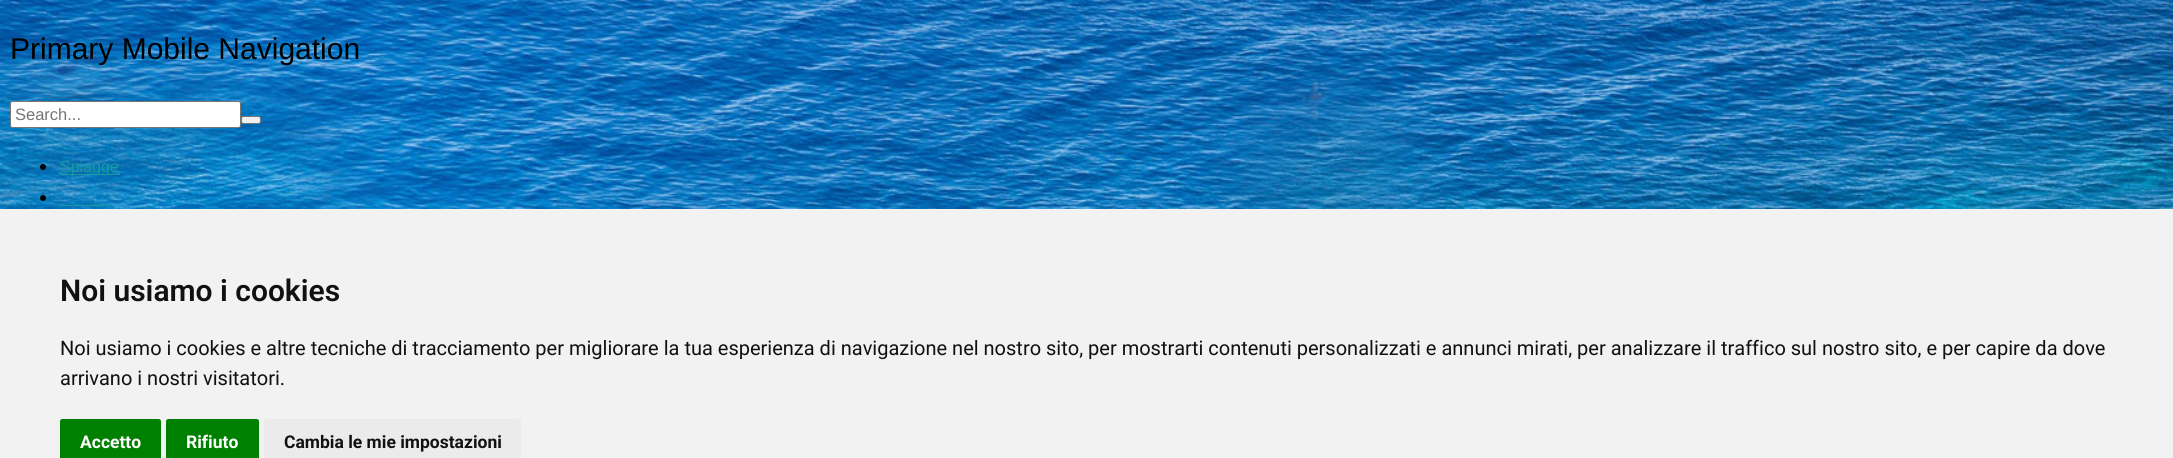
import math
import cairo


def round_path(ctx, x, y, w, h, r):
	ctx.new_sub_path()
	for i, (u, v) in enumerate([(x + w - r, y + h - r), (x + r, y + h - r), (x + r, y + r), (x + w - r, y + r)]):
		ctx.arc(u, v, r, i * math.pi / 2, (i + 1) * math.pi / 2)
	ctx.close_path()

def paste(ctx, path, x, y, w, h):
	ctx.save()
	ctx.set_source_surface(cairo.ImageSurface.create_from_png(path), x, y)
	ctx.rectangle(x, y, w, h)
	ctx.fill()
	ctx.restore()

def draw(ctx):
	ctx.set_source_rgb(1, 1, 1)
	ctx.paint()
	paste(ctx, 'media/1.png', 0, 0, 2173, 209)
	ctx.select_font_face('Liberation Sans')
	ctx.set_font_size(30)
	ctx.set_source_rgb(0, 0, 0)
	ctx.move_to(10, 59)
	ctx.show_text('Primary Mobile Navigation')
	ctx.set_source_rgb(1, 1, 1)
	round_path(ctx, 10.5, 101.5, 230, 26, 2)
	ctx.fill_preserve()
	ctx.set_source_rgb(0.463, 0.463, 0.463)
	ctx.set_line_width(1)
	ctx.stroke()
	ctx.set_font_size(16.5)
	ctx.set_source_rgb(0.459, 0.459, 0.459)
	ctx.move_to(15, 120)
	ctx.show_text('Search...')
	ctx.set_source_rgb(0.937, 0.937, 0.937)
	round_path(ctx, 241.5, 116.5, 19, 7, 2)
	ctx.fill_preserve()
	ctx.set_source_rgb(0.463, 0.463, 0.463)
	ctx.stroke()
	ctx.set_source_rgb(0, 0, 0)
	ctx.arc(43, 167, 3, 0, 2 * math.pi)
	ctx.fill()
	ctx.set_source_rgb(0.09, 0.608, 0.62)
	ctx.rectangle(60, 174, 60, 1)
	ctx.fill()
	ctx.set_font_size(16)
	ctx.move_to(60, 172)
	ctx.show_text('Spiagge')
	ctx.set_source_rgb(0, 0, 0)
	ctx.new_path()
	ctx.arc(43, 198, 3, 0, 2 * math.pi)
	ctx.fill()
	ctx.set_source_rgb(0.09, 0.608, 0.62)
	ctx.rectangle(60, 205, 49, 1)
	ctx.fill()
	ctx.set_source_rgb(0.949, 0.949, 0.949)
	ctx.rectangle(0, 209, 2173, 249)
	ctx.fill()
	ctx.select_font_face('Roboto SemiBold')
	ctx.set_font_size(30)
	ctx.set_source_rgb(0.067, 0.067, 0.067)
	ctx.move_to(60, 301)
	ctx.show_text('Noi usiamo i cookies')
	ctx.select_font_face('Roboto')
	ctx.set_font_size(20)
	ctx.move_to(60, 355)
	ctx.show_text('Noi usiamo i cookies e altre tecniche di tracciamento per migliorare la tua esperienza di navigazione nel nostro sito, per mostrarti contenuti personalizzati e annunci mirati, per analizzare il traffico sul nostro sito, e per capire da dove')
	ctx.move_to(60, 385)
	ctx.show_text('arrivano i nostri visitatori.')
	ctx.set_source_rgb(0, 0.502, 0)
	ctx.new_path()
	ctx.move_to(62.5, 419)
	ctx.line_to(158.5, 419)
	ctx.curve_to(160, 419, 161, 420, 161, 421.5)
	ctx.line_to(161, 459)
	ctx.line_to(60, 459)
	ctx.line_to(60, 421.5)
	ctx.curve_to(60, 420, 61, 419, 62.5, 419)
	ctx.close_path()
	ctx.fill()
	ctx.select_font_face('Roboto', cairo.FONT_SLANT_NORMAL, cairo.FONT_WEIGHT_BOLD)
	ctx.set_font_size(17.5)
	ctx.set_source_rgb(1, 1, 1)
	ctx.move_to(80, 448)
	ctx.show_text('Accetto')
	ctx.set_source_rgb(0, 0.502, 0)
	ctx.new_path()
	ctx.move_to(168.5, 419)
	ctx.line_to(256.5, 419)
	ctx.curve_to(258, 419, 259, 420, 259, 421.5)
	ctx.line_to(259, 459)
	ctx.line_to(166, 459)
	ctx.line_to(166, 421.5)
	ctx.curve_to(166, 420, 167, 419, 168.5, 419)
	ctx.close_path()
	ctx.fill()
	ctx.set_source_rgb(1, 1, 1)
	ctx.move_to(186, 448)
	ctx.show_text('Rifiuto')
	ctx.set_source_rgb(0.918, 0.918, 0.918)
	ctx.new_path()
	ctx.move_to(266.5, 419)
	ctx.line_to(518.5, 419)
	ctx.curve_to(520, 419, 521, 420, 521, 421.5)
	ctx.line_to(521, 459)
	ctx.line_to(264, 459)
	ctx.line_to(264, 421.5)
	ctx.curve_to(264, 420, 265, 419, 266.5, 419)
	ctx.close_path()
	ctx.fill()
	ctx.set_source_rgb(0.067, 0.067, 0.067)
	ctx.move_to(284, 448)
	ctx.show_text('Cambia le mie impostazioni')


surface = cairo.ImageSurface(cairo.FORMAT_RGB24, 2173, 458)
ctx = cairo.Context(surface)
options = cairo.FontOptions()
options.set_hint_metrics(cairo.HINT_METRICS_OFF)
options.set_hint_style(cairo.HINT_STYLE_NONE)
ctx.set_font_options(options)
ctx.set_miter_limit(4)
draw(ctx)
surface.write_to_png('image.png')
